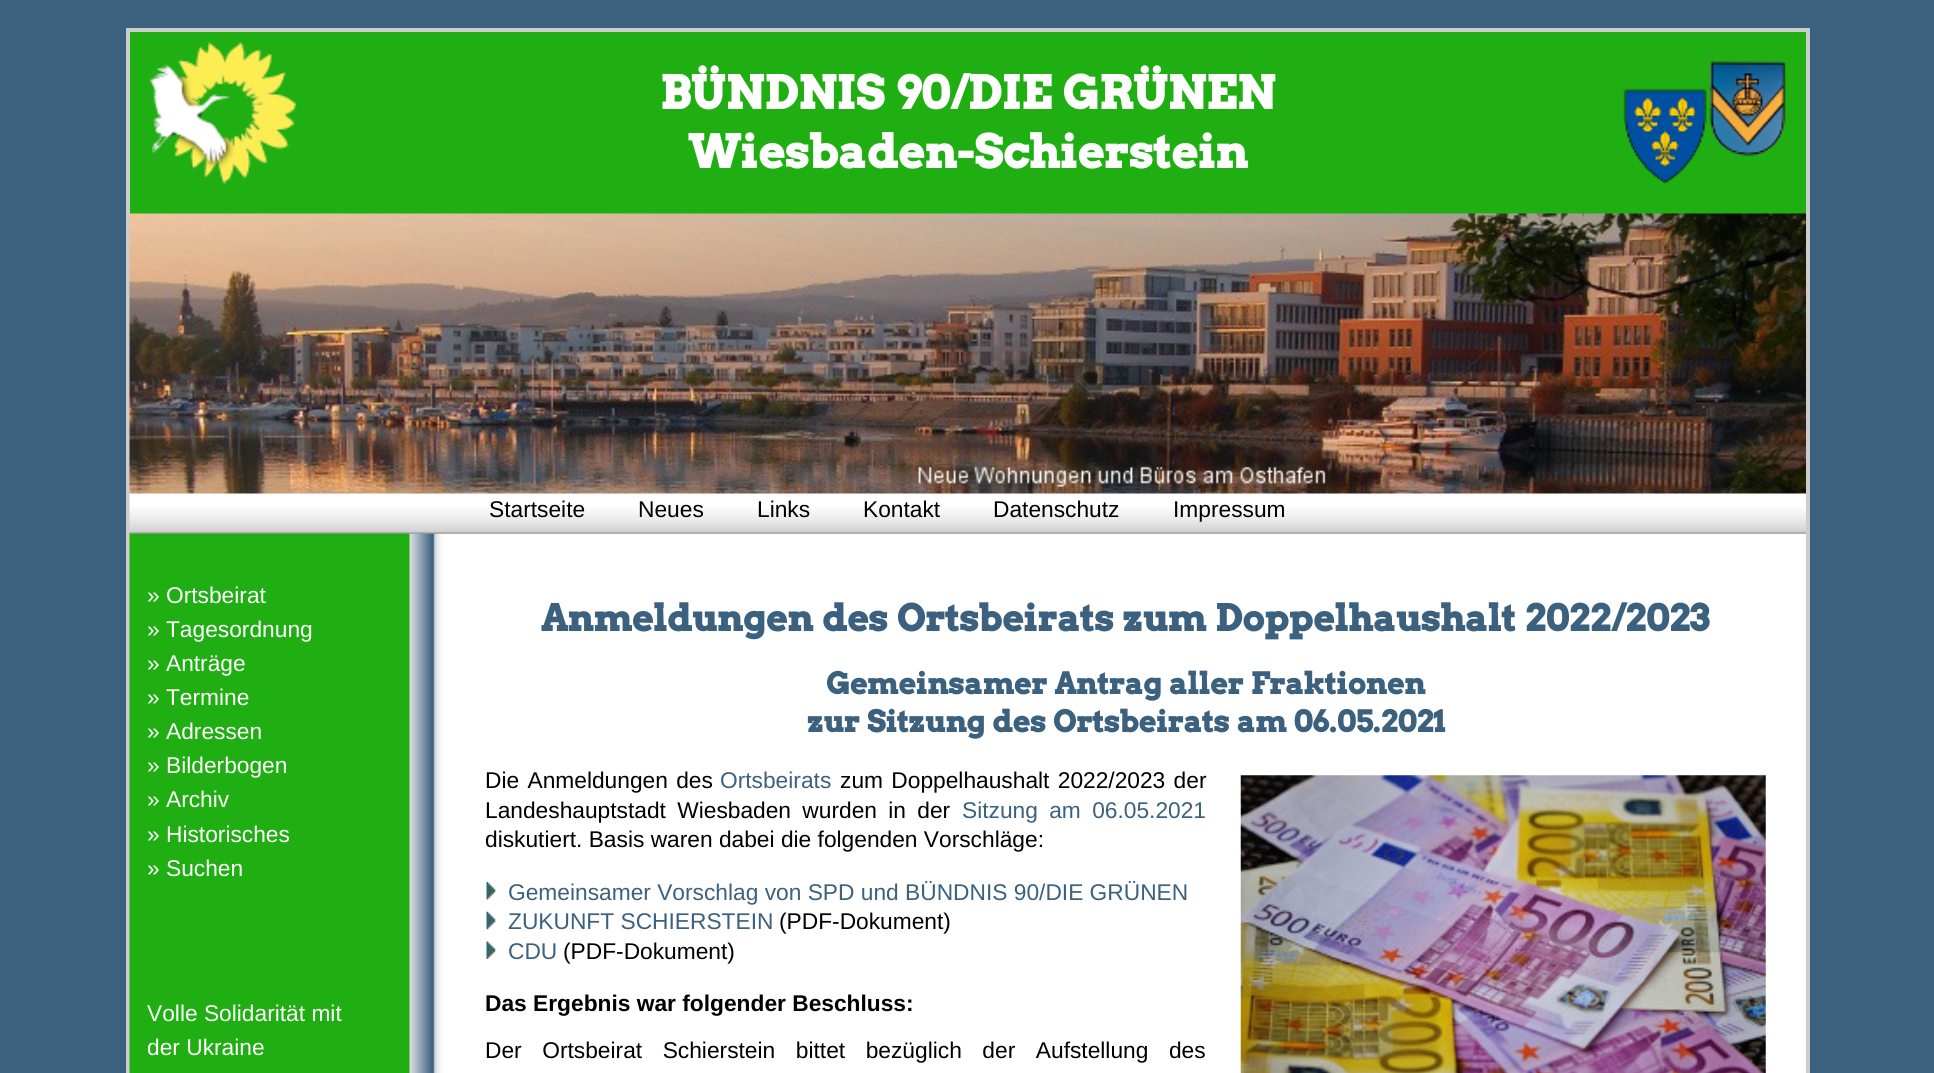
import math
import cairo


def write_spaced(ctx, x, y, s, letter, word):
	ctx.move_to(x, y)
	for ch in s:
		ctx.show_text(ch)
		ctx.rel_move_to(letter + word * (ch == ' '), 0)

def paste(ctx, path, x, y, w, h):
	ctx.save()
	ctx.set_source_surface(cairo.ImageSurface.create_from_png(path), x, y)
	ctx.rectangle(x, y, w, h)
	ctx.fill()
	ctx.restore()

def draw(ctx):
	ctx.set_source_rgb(0.231, 0.38, 0.498)
	ctx.paint()
	ctx.rectangle(128, 30, 1680, 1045)
	ctx.set_source_rgb(0.8, 0.8, 0.8)
	ctx.set_line_width(4)
	ctx.stroke()
	ctx.set_source_rgb(0.122, 0.686, 0.071)
	ctx.rectangle(130, 32, 1676, 182)
	ctx.fill()
	paste(ctx, 'media/1.png', 149, 42, 148, 142)
	ctx.select_font_face('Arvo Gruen', cairo.FONT_SLANT_NORMAL, cairo.FONT_WEIGHT_BOLD)
	ctx.set_font_size(45.5)
	ctx.set_source_rgb(1, 1, 1)
	ctx.move_to(660, 109)
	ctx.show_text('BÜNDNIS 90/DIE GRÜNEN')
	ctx.move_to(688, 168)
	ctx.show_text('Wiesbaden-Schierstein')
	paste(ctx, 'media/2.png', 1623, 61, 163, 123)
	paste(ctx, 'media/4.png', 129, 484, 1677, 50)
	paste(ctx, 'media/3.png', 129, 213, 1677, 281)
	ctx.select_font_face('Liberation Sans')
	ctx.set_font_size(22.75)
	ctx.set_source_rgb(0, 0, 0)
	for x, y, s in [
		(489, 517, 'Startseite'),
		(638, 517, 'Neues'),
		(757, 517, 'Links'),
		(863, 517, 'Kontakt'),
		(993, 517, 'Datenschutz'),
		(1173, 517, 'Impressum'),
	]:
		ctx.move_to(x, y)
		ctx.show_text(s)
	paste(ctx, 'media/5.png', 129, 533, 1677, 540)
	ctx.set_source_rgb(1, 1, 1)
	for x, y, s in [
		(147, 603, '» Ortsbeirat'),
		(147, 637, '» Tagesordnung'),
		(147, 671, '» Anträge'),
		(147, 705, '» Termine'),
		(147, 739, '» Adressen'),
		(147, 773, '» Bilderbogen'),
		(147, 807, '» Archiv'),
		(147, 842, '» Historisches'),
		(147, 876, '» Suchen'),
		(147, 1021, 'Volle Solidarität mit'),
		(147, 1055, 'der Ukraine'),
	]:
		ctx.move_to(x, y)
		ctx.show_text(s)
	ctx.select_font_face('Arvo Gruen', cairo.FONT_SLANT_NORMAL, cairo.FONT_WEIGHT_BOLD)
	ctx.set_font_size(36.4)
	ctx.set_source_rgb(0.231, 0.38, 0.498)
	ctx.move_to(541, 631)
	ctx.show_text('Anmeldungen des Ortsbeirats zum Doppelhaushalt 2022/2023')
	ctx.set_font_size(29.6)
	ctx.move_to(826, 694)
	ctx.show_text('Gemeinsamer Antrag aller Fraktionen')
	ctx.move_to(807, 732)
	ctx.show_text('zur Sitzung des Ortsbeirats am 06.05.2021')
	ctx.select_font_face('Liberation Sans')
	ctx.set_font_size(22.75)
	ctx.set_source_rgb(0, 0, 0)
	write_spaced(ctx, 485, 788, 'Die Anmeldungen des', 0, 2)
	ctx.set_source_rgb(0.231, 0.38, 0.498)
	ctx.move_to(720, 788)
	ctx.show_text('Ortsbeirats')
	ctx.set_source_rgb(0, 0, 0)
	write_spaced(ctx, 840, 788, 'zum Doppelhaushalt 2022/2023 der', 0, 2)
	write_spaced(ctx, 485, 818, 'Landeshauptstadt Wiesbaden wurden in der', 0, 5)
	ctx.set_source_rgb(0.231, 0.38, 0.498)
	write_spaced(ctx, 962, 818, 'Sitzung am 06.05.2021', 0, 5)
	ctx.set_source_rgb(0, 0, 0)
	ctx.move_to(485, 847)
	ctx.show_text('diskutiert. Basis waren dabei die folgenden Vorschläge:')
	paste(ctx, 'media/6.png', 1240, 775, 526, 298)
	paste(ctx, 'media/7.png', 486, 882, 10, 18)
	ctx.set_source_rgb(0.231, 0.38, 0.498)
	ctx.move_to(508, 900)
	ctx.show_text('Gemeinsamer Vorschlag von SPD und BÜNDNIS 90/DIE GRÜNEN')
	paste(ctx, 'media/8.png', 486, 911, 10, 19)
	ctx.move_to(508, 929)
	ctx.show_text('ZUKUNFT SCHIERSTEIN')
	ctx.set_source_rgb(0, 0, 0)
	ctx.move_to(779, 929)
	ctx.show_text('(PDF-Dokument)')
	paste(ctx, 'media/9.png', 486, 941, 10, 18)
	ctx.set_source_rgb(0.231, 0.38, 0.498)
	ctx.move_to(508, 959)
	ctx.show_text('CDU')
	ctx.set_source_rgb(0, 0, 0)
	ctx.move_to(563, 959)
	ctx.show_text('(PDF-Dokument)')
	ctx.select_font_face('Liberation Sans', cairo.FONT_SLANT_NORMAL, cairo.FONT_WEIGHT_BOLD)
	ctx.move_to(485, 1011)
	ctx.show_text('Das Ergebnis war folgender Beschluss:')
	ctx.select_font_face('Liberation Sans')
	write_spaced(ctx, 485, 1058, 'Der Ortsbeirat Schierstein bittet bezüglich der Aufstellung des', 0, 14.25)


surface = cairo.ImageSurface(cairo.FORMAT_RGB24, 1934, 1073)
ctx = cairo.Context(surface)
options = cairo.FontOptions()
options.set_hint_metrics(cairo.HINT_METRICS_OFF)
options.set_hint_style(cairo.HINT_STYLE_NONE)
ctx.set_font_options(options)
ctx.set_miter_limit(4)
draw(ctx)
surface.write_to_png('image.png')
